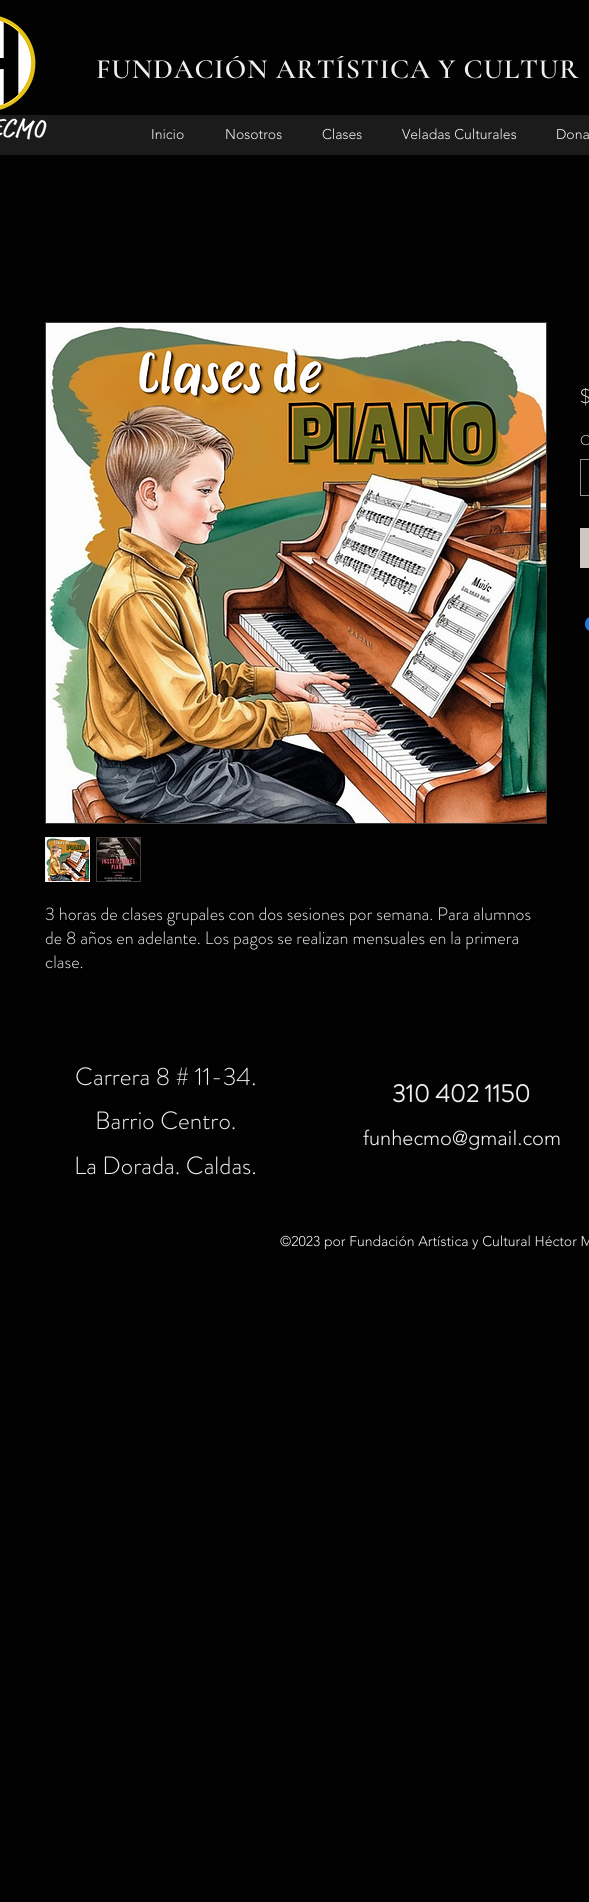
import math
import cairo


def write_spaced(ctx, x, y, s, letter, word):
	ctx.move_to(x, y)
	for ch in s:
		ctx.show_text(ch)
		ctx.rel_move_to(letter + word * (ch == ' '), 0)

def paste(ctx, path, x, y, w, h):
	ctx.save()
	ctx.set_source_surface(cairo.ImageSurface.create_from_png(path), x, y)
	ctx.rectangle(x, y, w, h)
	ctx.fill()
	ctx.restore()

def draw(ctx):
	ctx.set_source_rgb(0.008, 0.008, 0.008)
	ctx.paint()
	ctx.set_source_rgb(0.106, 0.106, 0.106)
	ctx.rectangle(0, 115, 589, 40)
	ctx.fill()
	paste(ctx, 'media/1.png', 0, 16, 47, 124)
	ctx.select_font_face('Cormorant Garamond SemiBold')
	ctx.set_font_size(28)
	ctx.set_source_rgb(0.937, 0.937, 0.937)
	write_spaced(ctx, 96, 78, 'FUNDACIÓN ARTÍSTICA Y CULTUR', 0.85, 0)
	ctx.select_font_face('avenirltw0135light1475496 Light')
	ctx.set_font_size(14)
	for x, y, s in [
		(151, 139, 'Inicio'),
		(225, 139, 'Nosotros'),
		(322, 139, 'Clases'),
		(402, 139, 'Veladas Culturales'),
		(556, 139, 'Dona'),
	]:
		ctx.move_to(x, y)
		ctx.show_text(s)
	ctx.select_font_face('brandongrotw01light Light')
	ctx.set_font_size(20)
	ctx.move_to(580, 403)
	ctx.show_text('$')
	ctx.set_font_size(14)
	ctx.move_to(580, 445)
	ctx.show_text('C')
	ctx.rectangle(580.5, 459.5, 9, 36)
	ctx.set_source_rgb(0.565, 0.565, 0.565)
	ctx.set_line_width(1)
	ctx.stroke()
	ctx.set_source_rgb(0.812, 0.773, 0.765)
	ctx.rectangle(580, 528, 9, 40)
	ctx.fill()
	paste(ctx, 'media/2.png', 585, 617, 4, 14)
	ctx.rectangle(45.5, 322.5, 501, 501)
	ctx.set_source_rgb(0.239, 0.239, 0.239)
	ctx.stroke()
	paste(ctx, 'media/3.png', 46, 323, 500, 500)
	ctx.rectangle(45.5, 837.5, 44, 44)
	ctx.set_source_rgb(0.937, 0.937, 0.937)
	ctx.stroke()
	paste(ctx, 'media/4.png', 46, 838, 43, 43)
	ctx.set_source_rgb(0.239, 0.239, 0.239)
	ctx.rectangle(96, 837, 45, 45)
	ctx.fill()
	paste(ctx, 'media/5.png', 97, 838, 43, 43)
	ctx.set_font_size(18)
	ctx.set_source_rgb(0.937, 0.937, 0.937)
	for x, y, s in [
		(45, 920, '3 horas de clases grupales con dos sesiones por semana. Para alumnos'),
		(45, 944, 'de 8 años en adelante. Los pagos se realizan mensuales en la primera'),
		(45, 968, 'clase.'),
	]:
		ctx.move_to(x, y)
		ctx.show_text(s)
	ctx.set_font_size(25)
	for x, y, s in [
		(75, 1085, 'Carrera 8 # 11-34.'),
		(95, 1129, 'Barrio Centro.'),
		(74, 1174, 'La Dorada. Caldas.'),
	]:
		ctx.move_to(x, y)
		ctx.show_text(s)
	ctx.select_font_face('brandongrotw01light', cairo.FONT_SLANT_NORMAL, cairo.FONT_WEIGHT_BOLD)
	ctx.move_to(392, 1102)
	ctx.show_text('310 402 1150')
	ctx.select_font_face('avenirltw0135light1475496 Light')
	ctx.set_font_size(20)
	ctx.move_to(363, 1145)
	ctx.show_text('funhecmo@gmail.com')
	ctx.set_font_size(14)
	ctx.move_to(280, 1246)
	ctx.show_text('©2023 por Fundación Artística y Cultural Héctor M')


surface = cairo.ImageSurface(cairo.FORMAT_RGB24, 589, 1902)
ctx = cairo.Context(surface)
options = cairo.FontOptions()
options.set_hint_metrics(cairo.HINT_METRICS_OFF)
options.set_hint_style(cairo.HINT_STYLE_NONE)
ctx.set_font_options(options)
ctx.set_miter_limit(4)
draw(ctx)
surface.write_to_png('image.png')
